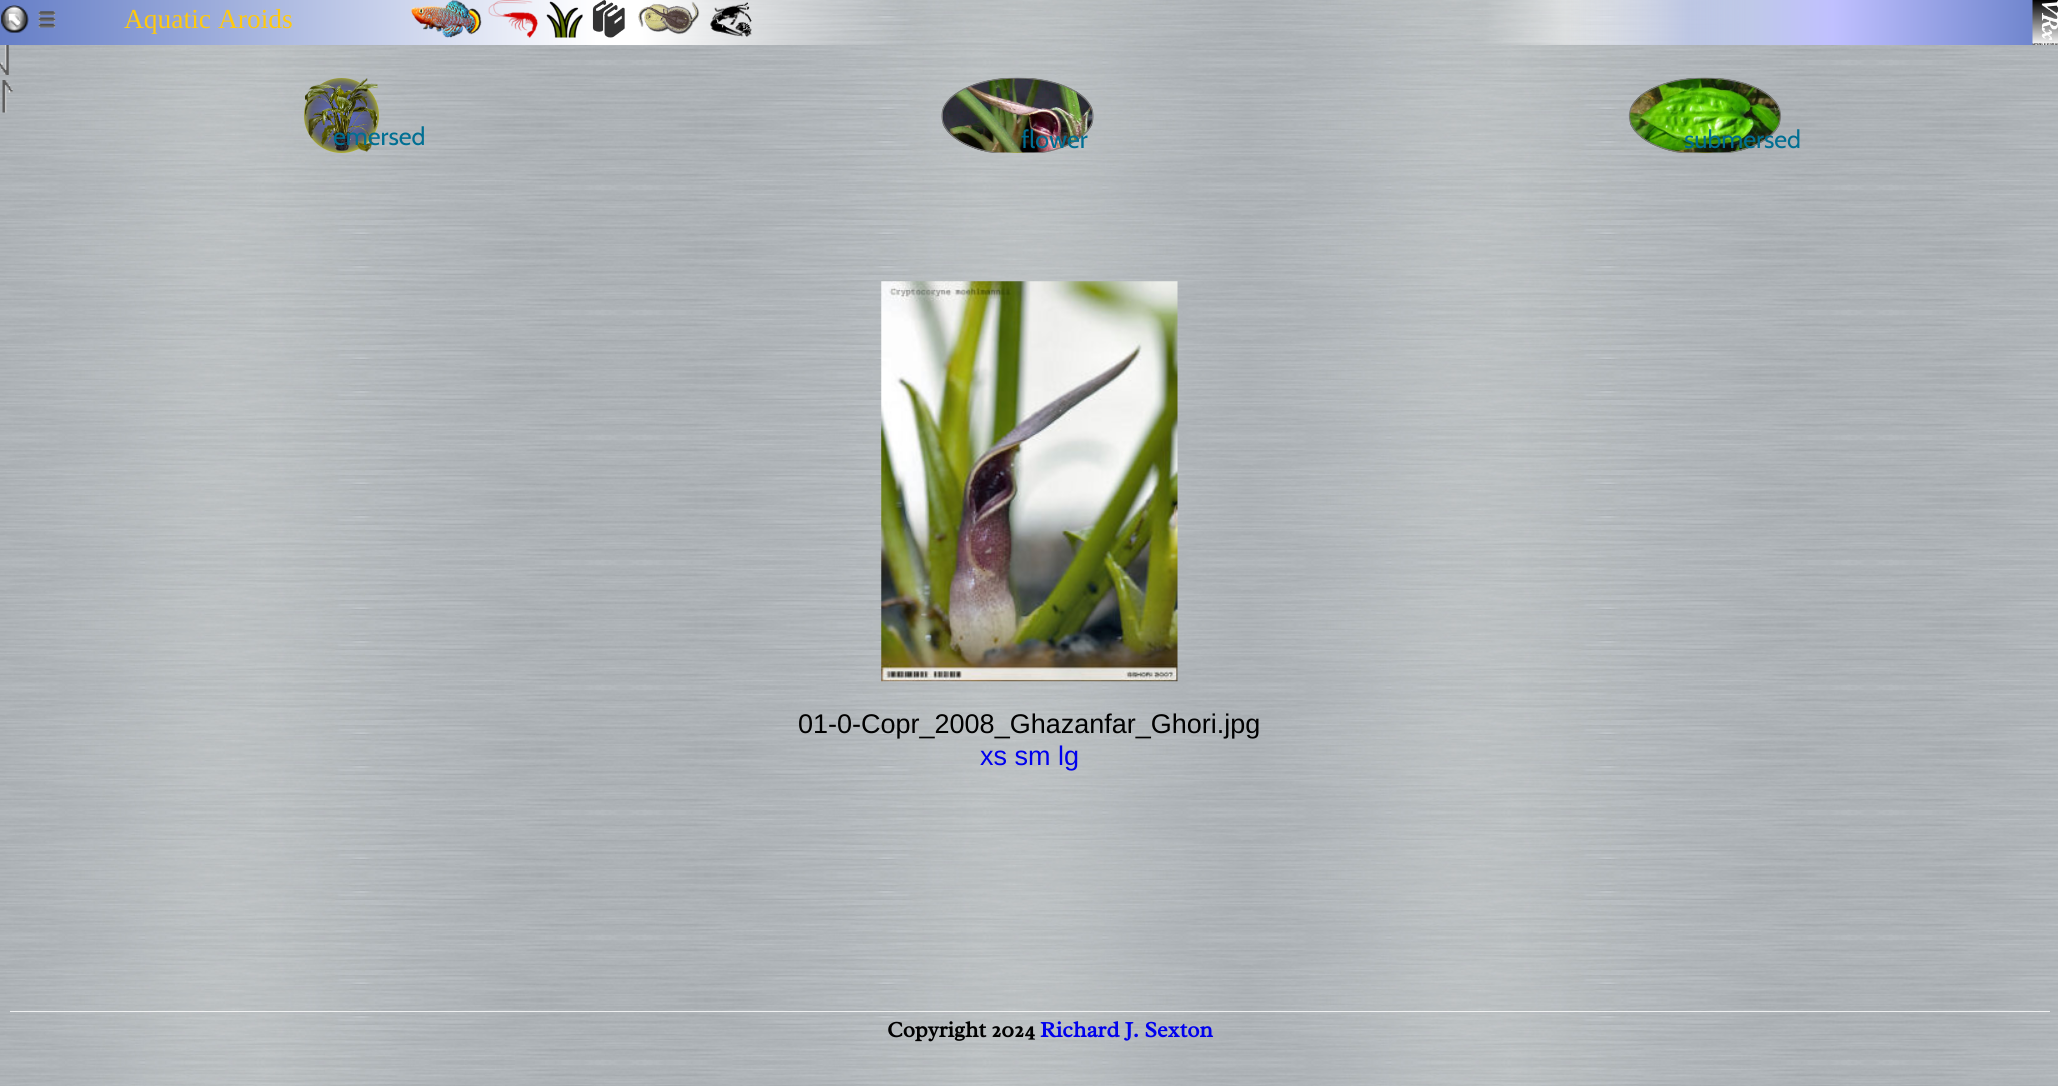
import math
import cairo


def paste(ctx, path, x, y, w, h):
	ctx.save()
	ctx.set_source_surface(cairo.ImageSurface.create_from_png(path), x, y)
	ctx.rectangle(x, y, w, h)
	ctx.fill()
	ctx.restore()

def draw(ctx):
	ctx.set_source_rgb(1, 1, 1)
	ctx.paint()
	paste(ctx, 'media/1.png', 0, 0, 2058, 1086)
	gradient = cairo.LinearGradient(0, 23, 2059, 22)
	gradient.add_color_stop_rgba(0, 0.396, 0.494, 0.78, 1)
	gradient.add_color_stop_rgba(0.29, 1, 1, 1, 1)
	gradient.add_color_stop_rgba(0.31, 1, 1, 1, 1)
	gradient.add_color_stop_rgba(0.36, 1, 1, 1, 0.6)
	gradient.add_color_stop_rgba(0.44, 1, 1, 1, 0)
	gradient.add_color_stop_rgba(0.72, 1, 1, 1, 0)
	gradient.add_color_stop_rgba(0.76, 1, 1, 1, 0.5)
	gradient.add_color_stop_rgba(0.82, 0.749, 0.788, 0.91, 0.9)
	gradient.add_color_stop_rgba(0.85, 0.749, 0.788, 0.91, 1)
	gradient.add_color_stop_rgba(0.89, 0.753, 0.753, 1, 1)
	gradient.add_color_stop_rgba(1, 0.396, 0.494, 0.78, 1)
	ctx.set_source(gradient)
	ctx.rectangle(0, 0, 2033, 45)
	ctx.fill()
	paste(ctx, 'media/2.png', 411, 0, 71, 38)
	paste(ctx, 'media/3.png', 488, 0, 50, 38)
	paste(ctx, 'media/4.png', 546, 1, 37, 37)
	paste(ctx, 'media/5.png', 592, 0, 33, 38)
	paste(ctx, 'media/6.png', 638, 1, 62, 34)
	paste(ctx, 'media/7.png', 710, 2, 42, 35)
	paste(ctx, 'media/8.png', 2032, 0, 26, 45)
	paste(ctx, 'media/9.png', 1, 5, 28, 28)
	paste(ctx, 'media/10.png', 38, 11, 18, 17)
	ctx.set_source_rgba(1, 1, 1, 0.8)
	ctx.rectangle(10, 1011, 2040, 1)
	ctx.fill()
	ctx.select_font_face('Liberation Serif')
	ctx.set_font_size(27.5)
	ctx.set_source_rgb(1, 0.788, 0.055)
	ctx.move_to(124, 28)
	ctx.show_text('Aquatic Aroids')
	ctx.select_font_face('Radley', cairo.FONT_SLANT_NORMAL, cairo.FONT_WEIGHT_BOLD)
	ctx.set_font_size(22.5)
	ctx.set_source_rgb(0, 0, 0)
	ctx.move_to(887, 1037)
	ctx.show_text('Copyright 2024')
	ctx.set_source_rgb(0, 0, 0.933)
	ctx.move_to(1040, 1037)
	ctx.show_text('Richard J. Sexton')
	paste(ctx, 'media/11.png', 881, 281, 297, 401)
	ctx.select_font_face('Liberation Sans')
	ctx.set_font_size(27)
	ctx.set_source_rgb(0, 0, 0)
	ctx.move_to(798, 733)
	ctx.show_text('01-0-Copr_2008_Ghazanfar_Ghori.jpg')
	ctx.set_source_rgb(0, 0, 0.933)
	ctx.move_to(980, 765)
	ctx.show_text('xs sm lg')
	paste(ctx, 'media/12.png', 0, 45, 9, 30)
	paste(ctx, 'media/13.png', 2, 80, 11, 33)
	paste(ctx, 'media/14.png', 305, 78, 73, 74)
	ctx.select_font_face('Cabin')
	ctx.set_font_size(25)
	ctx.set_source_rgb(0, 0.435, 0.576)
	ctx.move_to(333, 145)
	ctx.show_text('emersed')
	paste(ctx, 'media/15.png', 942, 77, 151, 76)
	ctx.save()
	ctx.rectangle(941, 78, 153, 75)
	ctx.clip()
	ctx.new_path()
	ctx.move_to(1017.5, 78)
	ctx.curve_to(1059.5, 78, 1093, 95, 1093, 116)
	ctx.curve_to(1093, 137.5, 1059.5, 154.5, 1017.5, 154.5)
	ctx.curve_to(975.5, 154.5, 942, 137.5, 942, 116)
	ctx.curve_to(942, 95, 975.5, 78, 1017.5, 78)
	ctx.close_path()
	ctx.set_source_rgb(0.471, 0.471, 0.471)
	ctx.set_line_width(1.2)
	ctx.stroke()
	ctx.restore()
	ctx.move_to(1021, 148)
	ctx.show_text('flower')
	paste(ctx, 'media/16.png', 1630, 77, 150, 76)
	ctx.save()
	ctx.rectangle(1609, 78, 192, 75)
	ctx.clip()
	ctx.new_path()
	ctx.move_to(1705, 78)
	ctx.curve_to(1747, 78, 1780.5, 95, 1780.5, 116)
	ctx.curve_to(1780.5, 137.5, 1747, 154.5, 1705, 154.5)
	ctx.curve_to(1663, 154.5, 1629.5, 137.5, 1629.5, 116)
	ctx.curve_to(1629.5, 95, 1663, 78, 1705, 78)
	ctx.close_path()
	ctx.set_source_rgb(0.471, 0.471, 0.471)
	ctx.set_line_width(1.2)
	ctx.stroke()
	ctx.restore()
	ctx.move_to(1684, 148)
	ctx.show_text('submersed')


surface = cairo.ImageSurface(cairo.FORMAT_RGB24, 2058, 1086)
ctx = cairo.Context(surface)
options = cairo.FontOptions()
options.set_hint_metrics(cairo.HINT_METRICS_OFF)
options.set_hint_style(cairo.HINT_STYLE_NONE)
ctx.set_font_options(options)
ctx.set_miter_limit(4)
draw(ctx)
surface.write_to_png('image.png')
